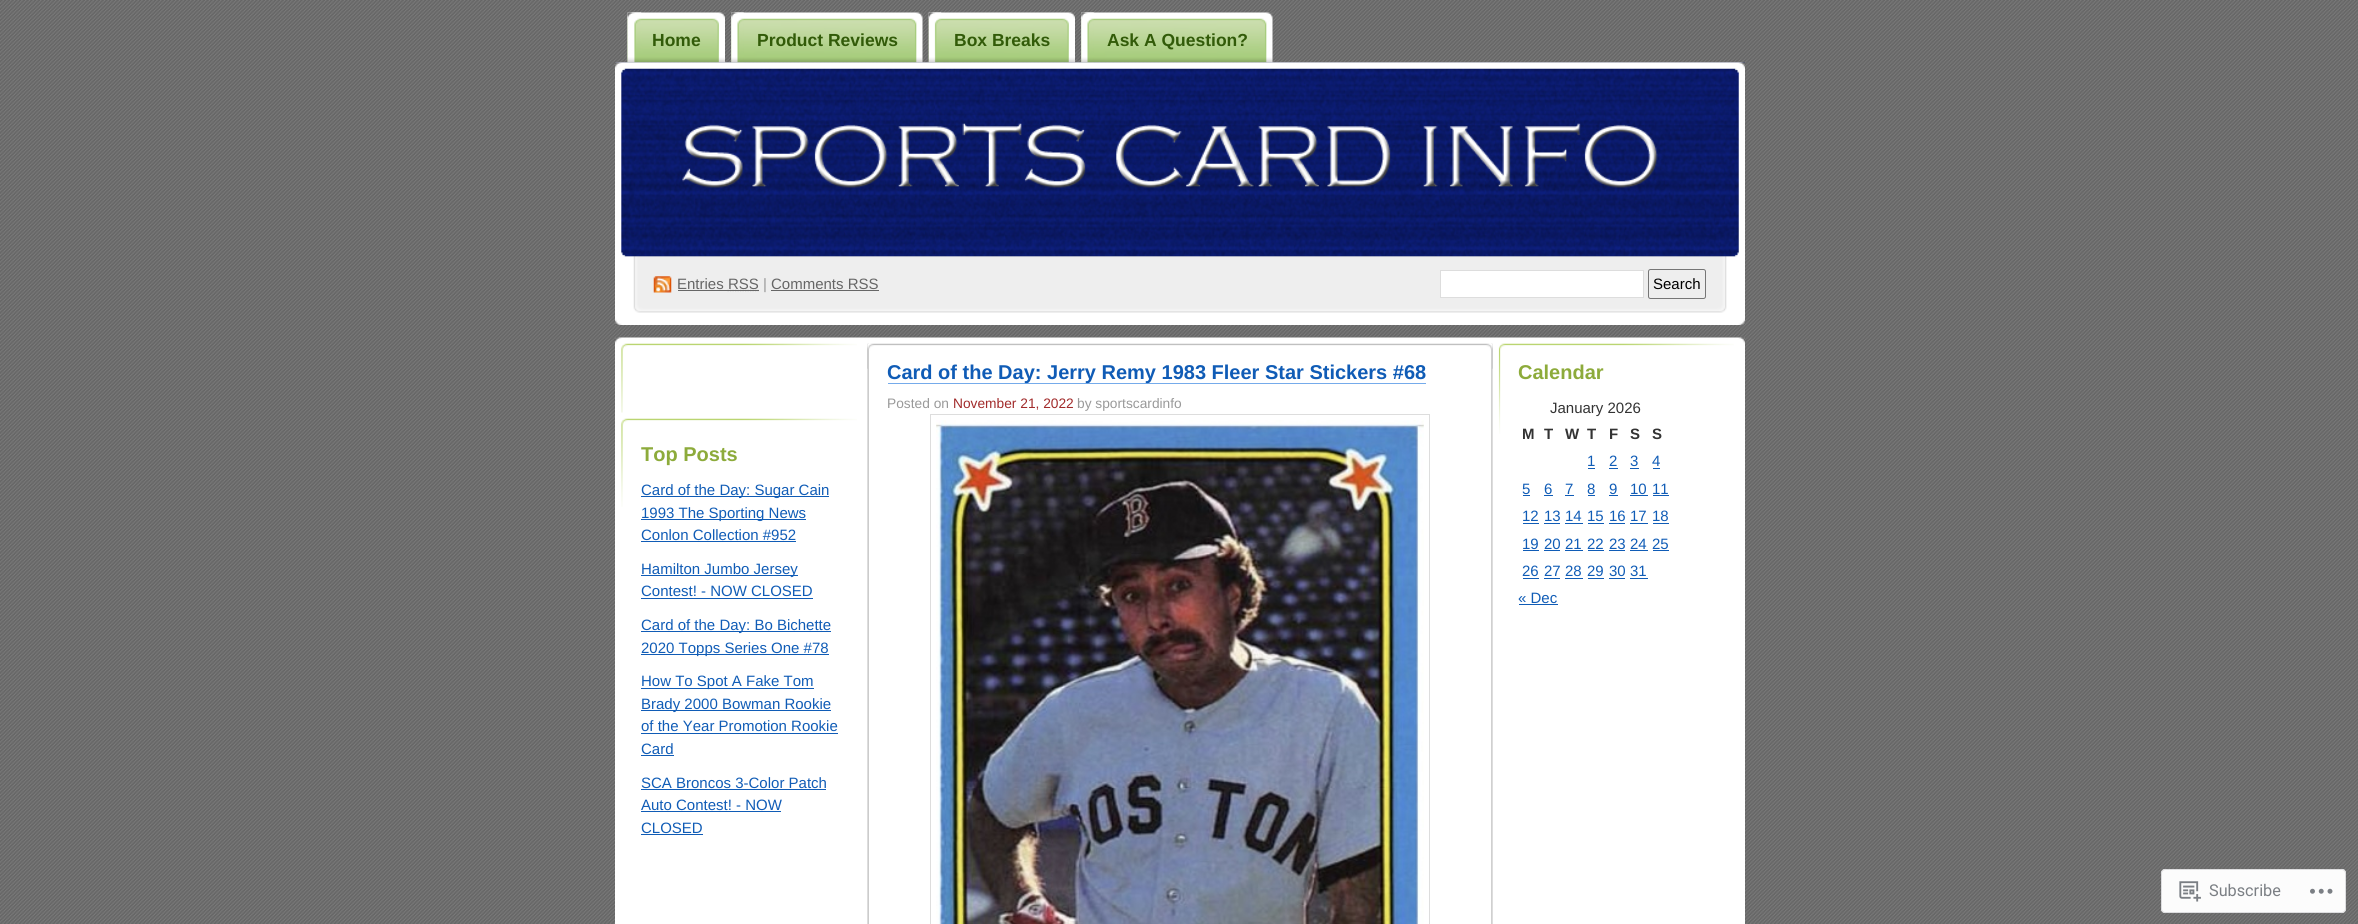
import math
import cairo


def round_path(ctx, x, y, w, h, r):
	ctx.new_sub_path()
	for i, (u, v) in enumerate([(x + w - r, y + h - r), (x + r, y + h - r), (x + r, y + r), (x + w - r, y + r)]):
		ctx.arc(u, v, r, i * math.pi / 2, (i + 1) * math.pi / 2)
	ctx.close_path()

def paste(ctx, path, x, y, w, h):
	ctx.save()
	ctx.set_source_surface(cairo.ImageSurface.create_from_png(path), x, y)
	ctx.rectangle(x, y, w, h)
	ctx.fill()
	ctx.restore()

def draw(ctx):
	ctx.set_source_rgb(1, 1, 1)
	ctx.paint()
	paste(ctx, 'media/1.png', 0, 0, 2358, 924)
	paste(ctx, 'media/2.png', 627, 12, 98, 51)
	paste(ctx, 'media/3.png', 627, 12, 15, 51)
	ctx.select_font_face('Liberation Sans', cairo.FONT_SLANT_NORMAL, cairo.FONT_WEIGHT_BOLD)
	ctx.set_font_size(17.5)
	ctx.set_source_rgb(0.196, 0.357, 0.039)
	ctx.move_to(652, 46)
	ctx.show_text('Home')
	paste(ctx, 'media/4.png', 731, 12, 192, 51)
	paste(ctx, 'media/5.png', 731, 12, 13, 51)
	ctx.move_to(757, 46)
	ctx.show_text('Product Reviews')
	paste(ctx, 'media/6.png', 928, 12, 147, 51)
	paste(ctx, 'media/7.png', 928, 12, 14, 51)
	ctx.move_to(954, 46)
	ctx.show_text('Box Breaks')
	paste(ctx, 'media/8.png', 1081, 12, 192, 51)
	paste(ctx, 'media/9.png', 1081, 12, 13, 51)
	ctx.move_to(1107, 46)
	ctx.show_text('Ask A Question?')
	paste(ctx, 'media/10.png', 615, 62, 1130, 195)
	paste(ctx, 'media/11.png', 615, 62, 1130, 263)
	paste(ctx, 'media/12.png', 653, 276, 19, 17)
	ctx.select_font_face('Liberation Sans')
	ctx.set_font_size(15)
	ctx.set_source_rgb(0.4, 0.4, 0.4)
	ctx.move_to(677, 289)
	ctx.show_text('Entries')
	ctx.rectangle(678, 290, 50, 1)
	ctx.fill()
	ctx.new_path()
	ctx.move_to(727.5, 290.5)
	ctx.line_to(758.5, 290.5)
	ctx.set_line_width(1.2)
	ctx.set_dash([1.25, 1.25])
	ctx.stroke()
	ctx.move_to(728, 289)
	ctx.show_text('RSS')
	ctx.rectangle(728, 290, 31, 1)
	ctx.fill()
	ctx.set_source_rgb(0.6, 0.6, 0.6)
	ctx.move_to(763, 289)
	ctx.show_text('|')
	ctx.set_source_rgb(0.4, 0.4, 0.4)
	ctx.move_to(771, 289)
	ctx.show_text('Comments RSS')
	ctx.rectangle(771, 290, 108, 1)
	ctx.fill()
	ctx.set_source_rgb(1, 1, 1)
	ctx.rectangle(1440.5, 270.5, 203, 27)
	ctx.fill_preserve()
	ctx.set_source_rgb(0.867, 0.867, 0.867)
	ctx.set_line_width(1)
	ctx.set_dash([])
	ctx.stroke()
	round_path(ctx, 1648.5, 269.5, 57, 29, 2)
	ctx.set_source_rgb(0.463, 0.463, 0.463)
	ctx.stroke()
	ctx.set_source_rgb(0, 0, 0)
	ctx.move_to(1653, 289)
	ctx.show_text('Search')
	ctx.set_source_rgb(1, 1, 1)
	ctx.rectangle(615, 344, 1130, 580)
	ctx.fill()
	paste(ctx, 'media/13.png', 615, 337, 1130, 7)
	paste(ctx, 'media/14.png', 621, 343, 236, 70)
	paste(ctx, 'media/15.png', 621, 418, 236, 89)
	ctx.select_font_face('Liberation Sans', cairo.FONT_SLANT_NORMAL, cairo.FONT_WEIGHT_BOLD)
	ctx.set_font_size(20)
	ctx.set_source_rgb(0.553, 0.671, 0.231)
	ctx.move_to(641, 461)
	ctx.show_text('Top Posts')
	ctx.set_source_rgb(0.063, 0.361, 0.714)
	ctx.rectangle(641, 496, 188, 1)
	ctx.fill()
	ctx.select_font_face('Liberation Sans')
	ctx.set_font_size(15)
	ctx.move_to(641, 495)
	ctx.show_text('Card of the Day: Sugar Cain')
	ctx.rectangle(641, 519, 165, 1)
	ctx.fill()
	ctx.move_to(641, 518)
	ctx.show_text('1993 The Sporting News')
	ctx.move_to(641, 540)
	ctx.show_text('Conlon Collection #952')
	ctx.rectangle(641, 541, 155, 1)
	ctx.fill()
	ctx.rectangle(641, 575, 157, 1)
	ctx.fill()
	ctx.move_to(641, 574)
	ctx.show_text('Hamilton Jumbo Jersey')
	ctx.move_to(641, 596)
	ctx.show_text('Contest! - NOW CLOSED')
	ctx.rectangle(641, 598, 172, 1)
	ctx.fill()
	ctx.rectangle(641, 631, 190, 1)
	ctx.fill()
	ctx.move_to(641, 630)
	ctx.show_text('Card of the Day: Bo Bichette')
	ctx.rectangle(641, 654, 188, 1)
	ctx.fill()
	ctx.move_to(641, 653)
	ctx.show_text('2020 Topps Series One #78')
	ctx.rectangle(641, 688, 173, 1)
	ctx.fill()
	ctx.move_to(641, 686)
	ctx.show_text('How To Spot A Fake Tom')
	ctx.rectangle(641, 710, 190, 1)
	ctx.fill()
	ctx.move_to(641, 709)
	ctx.show_text('Brady 2000 Bowman Rookie')
	ctx.move_to(641, 731)
	ctx.show_text('of the Year Promotion Rookie')
	ctx.rectangle(641, 733, 197, 1)
	ctx.fill()
	ctx.move_to(641, 754)
	ctx.show_text('Card')
	ctx.rectangle(641, 755, 33, 1)
	ctx.fill()
	ctx.move_to(641, 788)
	ctx.show_text('SCA Broncos 3-Color Patch')
	ctx.rectangle(641, 789, 185, 1)
	ctx.fill()
	ctx.move_to(641, 810)
	ctx.show_text('Auto Contest! - NOW')
	ctx.rectangle(641, 811, 140, 1)
	ctx.fill()
	ctx.move_to(641, 833)
	ctx.show_text('CLOSED')
	ctx.rectangle(641, 834, 62, 1)
	ctx.fill()
	paste(ctx, 'media/16.png', 867, 343, 626, 581)
	paste(ctx, 'media/17.png', 867, 343, 626, 26)
	ctx.set_source_rgb(0.459, 0.671, 0.918)
	ctx.rectangle(888, 383, 538, 1)
	ctx.fill()
	ctx.select_font_face('Liberation Sans', cairo.FONT_SLANT_NORMAL, cairo.FONT_WEIGHT_BOLD)
	ctx.set_font_size(20)
	ctx.set_source_rgb(0.063, 0.361, 0.714)
	ctx.move_to(887, 379)
	ctx.show_text('Card of the Day: Jerry Remy 1983 Fleer Star Stickers #68')
	ctx.select_font_face('Liberation Sans')
	ctx.set_font_size(13.75)
	ctx.set_source_rgb(0.6, 0.6, 0.6)
	ctx.move_to(887, 408)
	ctx.show_text('Posted on')
	ctx.set_source_rgb(0.631, 0.165, 0.165)
	ctx.move_to(953, 408)
	ctx.show_text('November 21, 2022')
	ctx.set_source_rgb(0.6, 0.6, 0.6)
	ctx.move_to(1077, 408)
	ctx.show_text('by sportscardinfo')
	ctx.rectangle(930.5, 414.5, 499, 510)
	ctx.set_source_rgb(0.867, 0.867, 0.867)
	ctx.stroke()
	paste(ctx, 'media/18.png', 936, 420, 488, 504)
	paste(ctx, 'media/19.png', 1498, 343, 236, 91)
	ctx.select_font_face('Liberation Sans', cairo.FONT_SLANT_NORMAL, cairo.FONT_WEIGHT_BOLD)
	ctx.set_font_size(20)
	ctx.set_source_rgb(0.553, 0.671, 0.231)
	ctx.move_to(1518, 379)
	ctx.show_text('Calendar')
	ctx.select_font_face('Liberation Sans')
	ctx.set_font_size(15)
	ctx.set_source_rgb(0.2, 0.2, 0.2)
	ctx.move_to(1550, 413)
	ctx.show_text('January 2026')
	ctx.select_font_face('Liberation Sans', cairo.FONT_SLANT_NORMAL, cairo.FONT_WEIGHT_BOLD)
	for x, y, s in [
		(1522, 439, 'M'),
		(1544, 439, 'T'),
		(1565, 439, 'W'),
		(1587, 439, 'T'),
		(1609, 439, 'F'),
		(1630, 439, 'S'),
		(1652, 439, 'S'),
	]:
		ctx.move_to(x, y)
		ctx.show_text(s)
	ctx.select_font_face('Liberation Sans')
	ctx.set_source_rgb(0.063, 0.361, 0.714)
	ctx.move_to(1587, 466)
	ctx.show_text('1')
	ctx.rectangle(1588, 468, 7, 1)
	ctx.fill()
	ctx.move_to(1609, 466)
	ctx.show_text('2')
	ctx.rectangle(1609, 468, 9, 1)
	ctx.fill()
	ctx.move_to(1630, 466)
	ctx.show_text('3')
	ctx.rectangle(1630, 468, 9, 1)
	ctx.fill()
	ctx.move_to(1652, 466)
	ctx.show_text('4')
	ctx.rectangle(1653, 468, 7, 1)
	ctx.fill()
	ctx.move_to(1522, 494)
	ctx.show_text('5')
	ctx.rectangle(1523, 495, 7, 1)
	ctx.fill()
	ctx.move_to(1544, 494)
	ctx.show_text('6')
	ctx.rectangle(1544, 495, 9, 1)
	ctx.fill()
	ctx.move_to(1565, 494)
	ctx.show_text('7')
	ctx.rectangle(1565, 495, 9, 1)
	ctx.fill()
	ctx.move_to(1587, 494)
	ctx.show_text('8')
	ctx.rectangle(1588, 495, 7, 1)
	ctx.fill()
	ctx.move_to(1609, 494)
	ctx.show_text('9')
	ctx.rectangle(1609, 495, 9, 1)
	ctx.fill()
	ctx.move_to(1630, 494)
	ctx.show_text('10')
	ctx.rectangle(1630, 495, 18, 1)
	ctx.fill()
	ctx.move_to(1652, 494)
	ctx.show_text('11')
	ctx.rectangle(1653, 495, 16, 1)
	ctx.fill()
	ctx.move_to(1522, 521)
	ctx.show_text('12')
	ctx.rectangle(1523, 523, 16, 1)
	ctx.fill()
	ctx.move_to(1544, 521)
	ctx.show_text('13')
	ctx.rectangle(1544, 523, 16, 1)
	ctx.fill()
	ctx.move_to(1565, 521)
	ctx.show_text('14')
	ctx.rectangle(1565, 523, 18, 1)
	ctx.fill()
	ctx.move_to(1587, 521)
	ctx.show_text('15')
	ctx.rectangle(1588, 523, 16, 1)
	ctx.fill()
	ctx.move_to(1609, 521)
	ctx.show_text('16')
	ctx.rectangle(1609, 523, 16, 1)
	ctx.fill()
	ctx.move_to(1630, 521)
	ctx.show_text('17')
	ctx.rectangle(1630, 523, 18, 1)
	ctx.fill()
	ctx.move_to(1652, 521)
	ctx.show_text('18')
	ctx.rectangle(1653, 523, 16, 1)
	ctx.fill()
	ctx.move_to(1522, 549)
	ctx.show_text('19')
	ctx.rectangle(1523, 550, 16, 1)
	ctx.fill()
	ctx.move_to(1544, 549)
	ctx.show_text('20')
	ctx.rectangle(1544, 550, 16, 1)
	ctx.fill()
	ctx.move_to(1565, 549)
	ctx.show_text('21')
	ctx.rectangle(1565, 550, 18, 1)
	ctx.fill()
	ctx.move_to(1587, 549)
	ctx.show_text('22')
	ctx.rectangle(1588, 550, 16, 1)
	ctx.fill()
	ctx.move_to(1609, 549)
	ctx.show_text('23')
	ctx.rectangle(1609, 550, 16, 1)
	ctx.fill()
	ctx.move_to(1630, 549)
	ctx.show_text('24')
	ctx.rectangle(1630, 550, 18, 1)
	ctx.fill()
	ctx.move_to(1652, 549)
	ctx.show_text('25')
	ctx.rectangle(1653, 550, 16, 1)
	ctx.fill()
	ctx.move_to(1522, 576)
	ctx.show_text('26')
	ctx.rectangle(1523, 578, 16, 1)
	ctx.fill()
	ctx.move_to(1544, 576)
	ctx.show_text('27')
	ctx.rectangle(1544, 578, 16, 1)
	ctx.fill()
	ctx.move_to(1565, 576)
	ctx.show_text('28')
	ctx.rectangle(1565, 578, 18, 1)
	ctx.fill()
	ctx.move_to(1587, 576)
	ctx.show_text('29')
	ctx.rectangle(1588, 578, 16, 1)
	ctx.fill()
	ctx.move_to(1609, 576)
	ctx.show_text('30')
	ctx.rectangle(1609, 578, 16, 1)
	ctx.fill()
	ctx.move_to(1630, 576)
	ctx.show_text('31')
	ctx.rectangle(1630, 578, 18, 1)
	ctx.fill()
	ctx.move_to(1518, 603)
	ctx.show_text('« Dec')
	ctx.rectangle(1519, 604, 39, 1)
	ctx.fill()
	ctx.set_source_rgba(1, 1, 1, 0.98)
	round_path(ctx, 2161, 869, 185, 44, 4)
	ctx.fill()
	round_path(ctx, 2161.5, 869.5, 184, 43, 3.5)
	ctx.set_source_rgba(0.863, 0.863, 0.871, 0.98)
	ctx.stroke()
	paste(ctx, 'media/20.png', 2179, 881, 22, 21)
	ctx.select_font_face('Roboto')
	ctx.set_font_size(16.25)
	ctx.set_source_rgb(0.482, 0.498, 0.518)
	ctx.move_to(2209, 896)
	ctx.show_text('Subscribe')
	paste(ctx, 'media/21.png', 2310, 888, 23, 6)


surface = cairo.ImageSurface(cairo.FORMAT_RGB24, 2358, 924)
ctx = cairo.Context(surface)
options = cairo.FontOptions()
options.set_hint_metrics(cairo.HINT_METRICS_OFF)
options.set_hint_style(cairo.HINT_STYLE_NONE)
ctx.set_font_options(options)
ctx.set_miter_limit(4)
draw(ctx)
surface.write_to_png('image.png')
